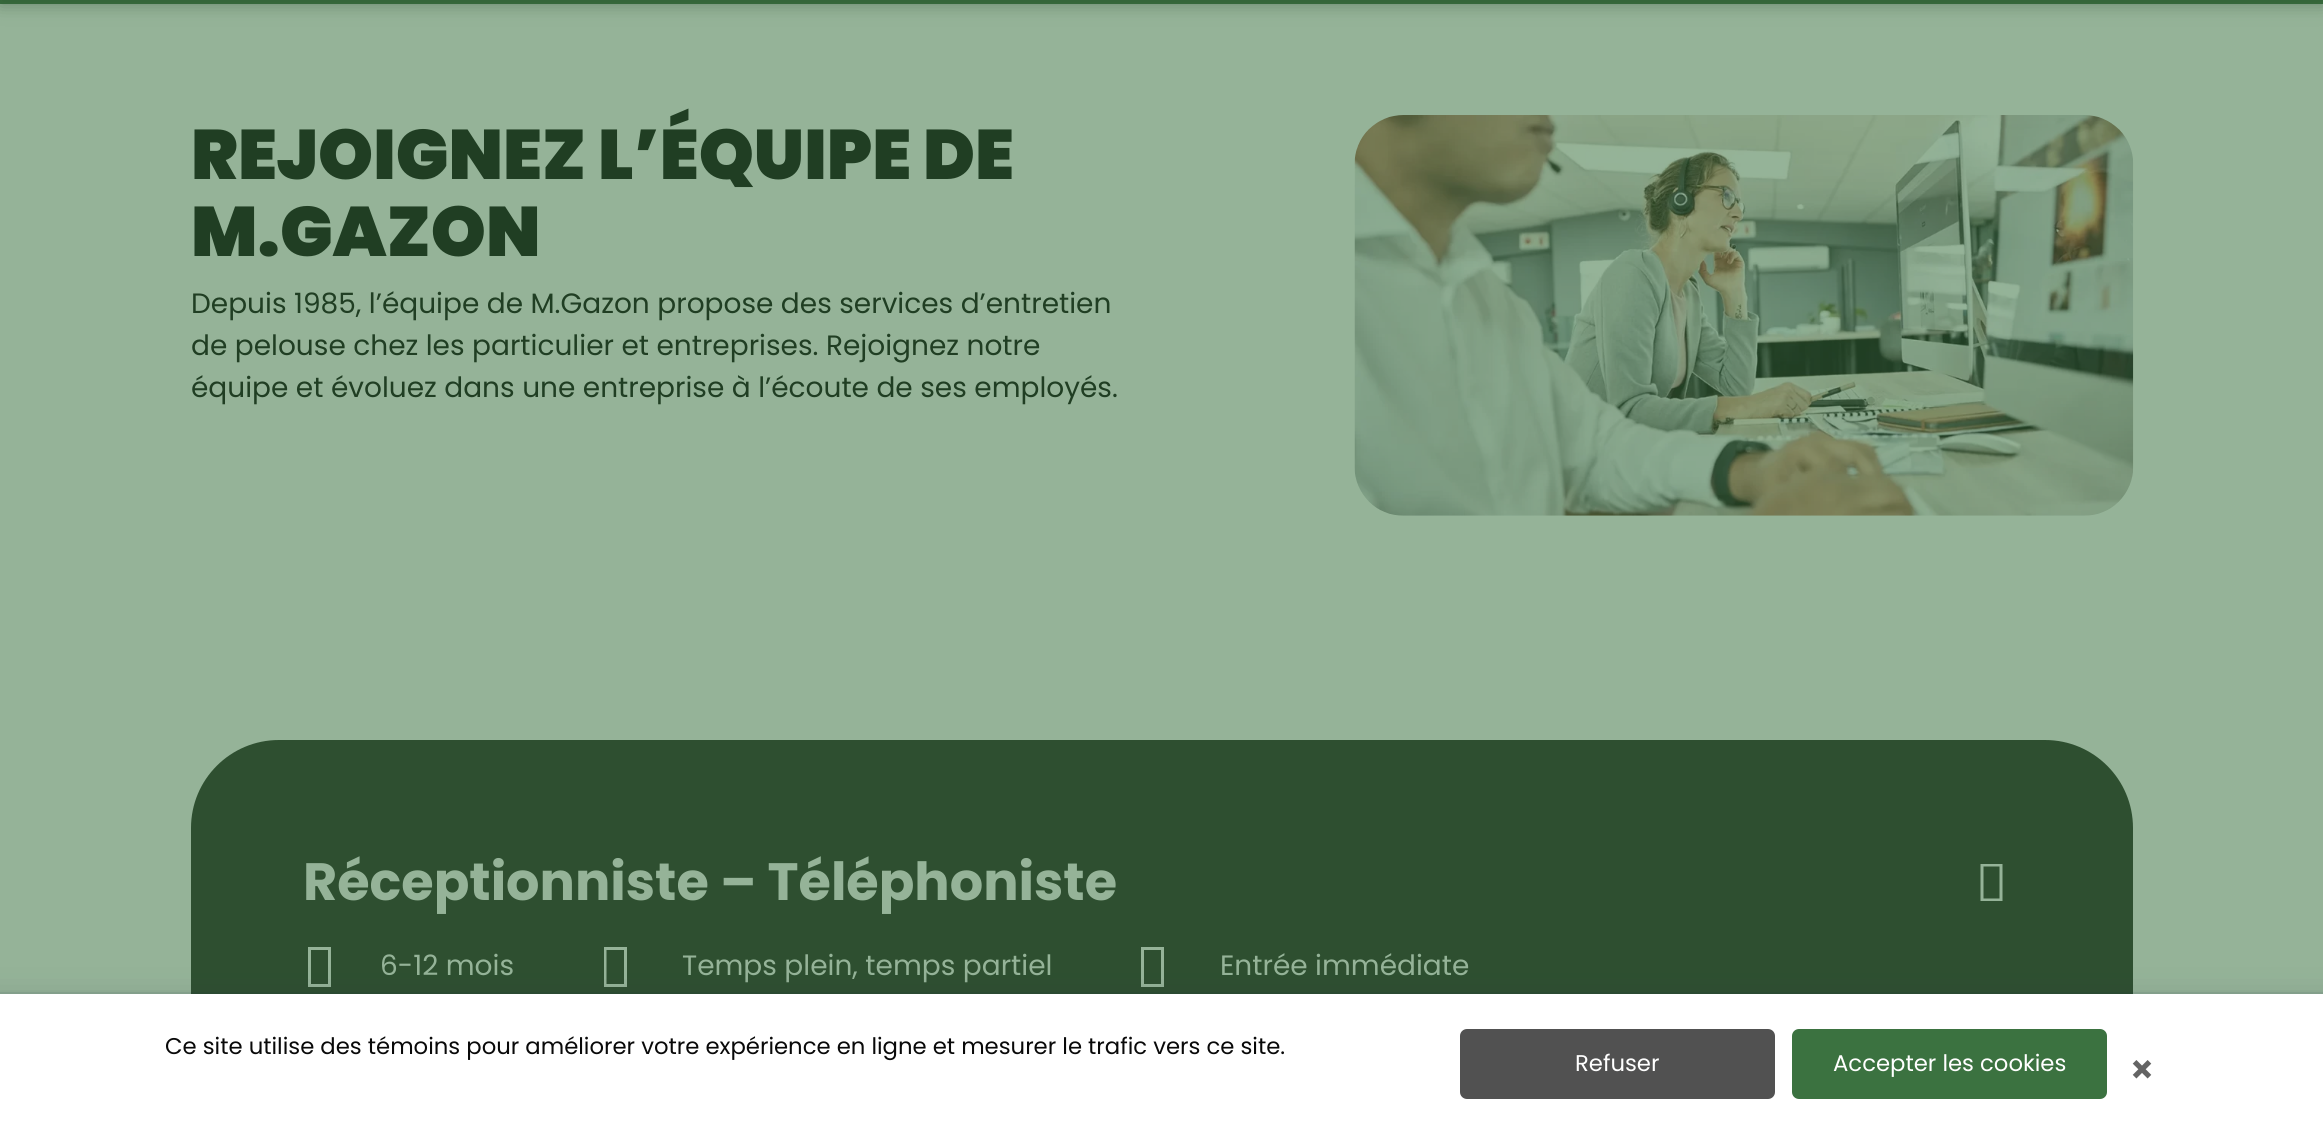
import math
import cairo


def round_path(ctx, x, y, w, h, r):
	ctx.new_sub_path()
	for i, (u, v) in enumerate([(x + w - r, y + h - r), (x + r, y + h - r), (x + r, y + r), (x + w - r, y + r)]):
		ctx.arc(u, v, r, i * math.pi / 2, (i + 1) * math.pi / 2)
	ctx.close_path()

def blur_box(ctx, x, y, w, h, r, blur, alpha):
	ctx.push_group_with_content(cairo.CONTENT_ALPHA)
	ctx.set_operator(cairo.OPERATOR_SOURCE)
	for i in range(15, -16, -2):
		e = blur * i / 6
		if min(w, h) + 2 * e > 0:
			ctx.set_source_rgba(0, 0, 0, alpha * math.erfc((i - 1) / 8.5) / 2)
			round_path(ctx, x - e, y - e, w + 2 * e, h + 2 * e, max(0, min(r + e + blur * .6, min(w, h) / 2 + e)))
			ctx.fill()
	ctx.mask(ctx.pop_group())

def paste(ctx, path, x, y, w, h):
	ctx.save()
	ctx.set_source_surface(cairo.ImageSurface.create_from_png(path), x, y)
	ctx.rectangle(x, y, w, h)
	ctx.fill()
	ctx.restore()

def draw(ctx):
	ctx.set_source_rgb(0.231, 0.447, 0.251)
	ctx.paint()
	ctx.set_source_rgb(0.584, 0.702, 0.596)
	ctx.rectangle(0, 4, 2323, 990)
	ctx.fill()
	ctx.set_source_rgb(0.125, 0.243, 0.137)
	blur_box(ctx, 0, -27, 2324, 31, 0, 9, 0.4)
	ctx.select_font_face('Poppins Black')
	ctx.set_font_size(70)
	ctx.set_source_rgb(0.125, 0.243, 0.137)
	ctx.move_to(191, 179)
	ctx.show_text('REJOIGNEZ L’ÉQUIPE DE')
	ctx.move_to(191, 256)
	ctx.show_text('M.GAZON')
	ctx.select_font_face('Poppins')
	ctx.set_font_size(28)
	for x, y, s in [
		(191, 313, 'Depuis 1985, l’équipe de M.Gazon propose des services d’entretien'),
		(191, 355, 'de pelouse chez les particulier et entreprises. Rejoignez notre'),
		(191, 397, 'équipe et évoluez dans une entreprise à l’écoute de ses employés.'),
	]:
		ctx.move_to(x, y)
		ctx.show_text(s)
	paste(ctx, 'media/1.png', 1354, 115, 780, 401)
	ctx.set_source_rgb(0.18, 0.31, 0.188)
	round_path(ctx, 191, 740, 1942, 366, 88)
	ctx.fill()
	ctx.select_font_face('Poppins', cairo.FONT_SLANT_NORMAL, cairo.FONT_WEIGHT_BOLD)
	ctx.set_font_size(52.5)
	ctx.set_source_rgb(0.584, 0.702, 0.596)
	ctx.move_to(303, 900)
	ctx.show_text('Réceptionniste – Téléphoniste')
	ctx.new_path()
	ctx.move_to(1980.5, 901)
	ctx.line_to(1980.5, 864)
	ctx.line_to(2002.5, 864)
	ctx.line_to(2002.5, 901)
	ctx.close_path()
	ctx.move_to(1983.5, 898.5)
	ctx.line_to(1999.5, 898.5)
	ctx.line_to(1999.5, 866.5)
	ctx.line_to(1983.5, 866.5)
	ctx.close_path()
	ctx.fill()
	ctx.new_path()
	ctx.move_to(308, 987)
	ctx.line_to(308, 947)
	ctx.line_to(331, 947)
	ctx.line_to(331, 987)
	ctx.close_path()
	ctx.move_to(311, 984)
	ctx.line_to(328, 984)
	ctx.line_to(328, 950)
	ctx.line_to(311, 950)
	ctx.close_path()
	ctx.fill()
	ctx.select_font_face('Poppins')
	ctx.set_font_size(28)
	ctx.move_to(380, 975)
	ctx.show_text('6-12 mois')
	ctx.new_path()
	ctx.move_to(604, 987)
	ctx.line_to(604, 947)
	ctx.line_to(627, 947)
	ctx.line_to(627, 987)
	ctx.close_path()
	ctx.move_to(606.5, 984)
	ctx.line_to(624, 984)
	ctx.line_to(624, 950)
	ctx.line_to(606.5, 950)
	ctx.close_path()
	ctx.fill()
	ctx.move_to(682, 975)
	ctx.show_text('Temps plein, temps partiel')
	ctx.new_path()
	ctx.move_to(1141, 987)
	ctx.line_to(1141, 947)
	ctx.line_to(1164, 947)
	ctx.line_to(1164, 987)
	ctx.close_path()
	ctx.move_to(1144, 984)
	ctx.line_to(1161, 984)
	ctx.line_to(1161, 950)
	ctx.line_to(1144, 950)
	ctx.close_path()
	ctx.fill()
	ctx.move_to(1220, 975)
	ctx.show_text('Entrée immédiate')
	ctx.set_source_rgb(0.141, 0.184, 0.259)
	blur_box(ctx, -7, 1005, 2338, 119, 0, 17.5, 0.31)
	ctx.rectangle(-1, 993, 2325, 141)
	ctx.set_source_rgba(0.141, 0.184, 0.259, 0.08)
	ctx.stroke()
	ctx.set_source_rgb(1, 1, 1)
	ctx.rectangle(0, 994, 2323, 139)
	ctx.fill()
	ctx.set_font_size(22.75)
	ctx.set_source_rgb(0.039, 0.039, 0.039)
	ctx.move_to(165, 1054)
	ctx.show_text('Ce site utilise des témoins pour améliorer votre expérience en ligne et mesurer le trafic vers ce site.')
	ctx.set_source_rgb(0.318, 0.318, 0.318)
	round_path(ctx, 1461, 1030, 313, 68, 6)
	ctx.fill_preserve()
	ctx.stroke()
	ctx.set_source_rgb(1, 1, 1)
	ctx.move_to(1575, 1071)
	ctx.show_text('Refuser')
	ctx.set_source_rgb(0.231, 0.447, 0.251)
	round_path(ctx, 1793, 1030, 313, 68, 6)
	ctx.fill_preserve()
	ctx.stroke()
	ctx.set_source_rgb(1, 1, 1)
	ctx.move_to(1833, 1071)
	ctx.show_text('Accepter les cookies')
	paste(ctx, 'media/2.png', 2132, 1060, 20, 19)


surface = cairo.ImageSurface(cairo.FORMAT_RGB24, 2323, 1133)
ctx = cairo.Context(surface)
options = cairo.FontOptions()
options.set_hint_metrics(cairo.HINT_METRICS_OFF)
options.set_hint_style(cairo.HINT_STYLE_NONE)
ctx.set_font_options(options)
ctx.set_miter_limit(4)
draw(ctx)
surface.write_to_png('image.png')
